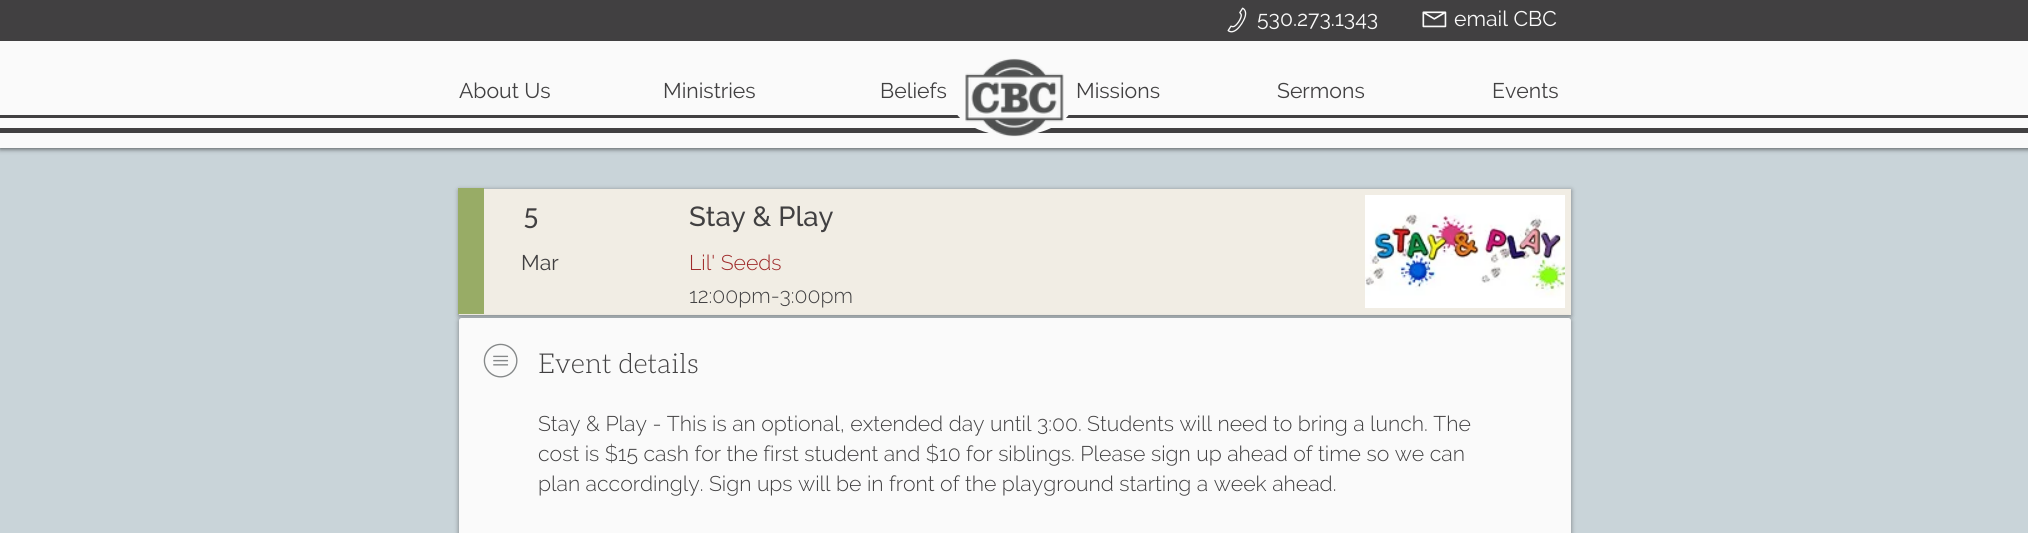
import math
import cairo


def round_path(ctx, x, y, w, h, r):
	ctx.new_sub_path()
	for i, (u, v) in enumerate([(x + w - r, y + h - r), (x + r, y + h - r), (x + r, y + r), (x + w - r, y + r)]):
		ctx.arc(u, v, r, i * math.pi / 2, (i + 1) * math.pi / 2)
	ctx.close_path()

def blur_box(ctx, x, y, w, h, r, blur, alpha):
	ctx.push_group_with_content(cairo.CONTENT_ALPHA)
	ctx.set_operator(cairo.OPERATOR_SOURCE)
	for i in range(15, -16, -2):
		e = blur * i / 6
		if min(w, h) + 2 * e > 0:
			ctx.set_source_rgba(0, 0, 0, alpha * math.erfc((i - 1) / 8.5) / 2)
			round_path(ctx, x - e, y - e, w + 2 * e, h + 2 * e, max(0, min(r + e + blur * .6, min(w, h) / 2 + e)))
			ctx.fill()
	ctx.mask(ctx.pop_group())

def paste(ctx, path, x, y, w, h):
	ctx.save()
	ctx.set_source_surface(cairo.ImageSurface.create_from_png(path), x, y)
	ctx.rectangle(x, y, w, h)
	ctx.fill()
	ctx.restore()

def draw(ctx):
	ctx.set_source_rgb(0.788, 0.831, 0.851)
	ctx.paint()
	ctx.set_source_rgb(0, 0, 0)
	blur_box(ctx, 0, 1, 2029, 148, 0, 2.5, 0.6)
	ctx.set_source_rgb(0.255, 0.251, 0.255)
	ctx.rectangle(0, 0, 2028, 41)
	ctx.fill()
	paste(ctx, 'media/1.png', 1227, 7, 20, 26)
	ctx.select_font_face('Raleway')
	ctx.set_font_size(21.25)
	ctx.set_source_rgb(0.98, 0.98, 0.98)
	ctx.move_to(1257, 26)
	ctx.show_text('530.273.1343')
	paste(ctx, 'media/2.png', 1422, 11, 25, 17)
	ctx.move_to(1454, 26)
	ctx.show_text('email CBC')
	ctx.rectangle(0, 41, 2028, 107)
	ctx.fill()
	ctx.set_source_rgb(0.255, 0.251, 0.255)
	ctx.rectangle(0, 115, 2028, 3)
	ctx.rectangle(0, 128, 2028, 5)
	ctx.fill()
	ctx.select_font_face('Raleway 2')
	for x, y, s in [
		(459, 98, 'About Us'),
		(663, 98, 'Ministries'),
		(880, 98, 'Beliefs'),
		(1076, 98, 'Missions'),
		(1277, 98, 'Sermons'),
		(1492, 98, 'Events'),
	]:
		ctx.move_to(x, y)
		ctx.show_text(s)
	ctx.set_source_rgb(0.98, 0.98, 0.98)
	ctx.new_path()
	ctx.move_to(1013, 136)
	ctx.curve_to(1047, 136, 1075, 119, 1075, 99)
	ctx.line_to(951, 99)
	ctx.curve_to(951, 119, 979, 136, 1013, 136)
	ctx.close_path()
	ctx.fill()
	paste(ctx, 'media/3.png', 965, 58, 99, 79)
	ctx.set_source_rgb(0.255, 0.251, 0.255)
	blur_box(ctx, 459, 190, 1112, 126, 0, 2.5, 0.6)
	ctx.set_source_rgb(0.945, 0.929, 0.894)
	ctx.rectangle(459, 189, 1112, 126)
	ctx.fill()
	ctx.set_source_rgb(0.596, 0.675, 0.4)
	ctx.rectangle(458, 188, 26, 126)
	ctx.fill()
	ctx.select_font_face('Aleo')
	ctx.set_font_size(27.5)
	ctx.set_source_rgb(0.255, 0.251, 0.255)
	ctx.move_to(524, 228)
	ctx.show_text('5')
	ctx.select_font_face('Raleway Medium')
	ctx.move_to(689, 226)
	ctx.show_text('Stay & Play')
	paste(ctx, 'media/4.png', 1365, 195, 200, 113)
	ctx.select_font_face('Raleway 2')
	ctx.set_font_size(21.25)
	ctx.move_to(521, 270)
	ctx.show_text('Mar')
	ctx.select_font_face('Raleway Light')
	ctx.set_source_rgb(0.624, 0.165, 0.165)
	ctx.move_to(689, 270)
	ctx.show_text('Lil\' Seeds')
	ctx.set_source_rgb(0.255, 0.251, 0.255)
	ctx.move_to(689, 303)
	ctx.show_text('12:00pm-3:00pm')
	ctx.set_source_rgb(0.255, 0.251, 0.255)
	blur_box(ctx, 459, 319, 1112, 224, 2.5, 2.5, 0.6)
	ctx.set_source_rgb(0.98, 0.98, 0.98)
	round_path(ctx, 459, 318, 1112, 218, 2.5)
	ctx.fill()
	paste(ctx, 'media/5.png', 483, 343, 35, 35)
	ctx.select_font_face('Aleo Light')
	ctx.set_font_size(27.5)
	ctx.set_source_rgb(0.255, 0.251, 0.255)
	ctx.move_to(538, 373)
	ctx.show_text('Event details')
	ctx.select_font_face('Raleway Light')
	ctx.set_font_size(21.25)
	for x, y, s in [
		(538, 431, 'Stay & Play - This is an optional, extended day until 3:00. Students will need to bring a lunch. The'),
		(538, 461, 'cost is $15 cash for the first student and $10 for siblings. Please sign up ahead of time so we can'),
		(538, 491, 'plan accordingly. Sign ups will be in front of the playground starting a week ahead.'),
	]:
		ctx.move_to(x, y)
		ctx.show_text(s)


surface = cairo.ImageSurface(cairo.FORMAT_RGB24, 2028, 533)
ctx = cairo.Context(surface)
options = cairo.FontOptions()
options.set_hint_metrics(cairo.HINT_METRICS_OFF)
options.set_hint_style(cairo.HINT_STYLE_NONE)
ctx.set_font_options(options)
ctx.set_miter_limit(4)
draw(ctx)
surface.write_to_png('image.png')
